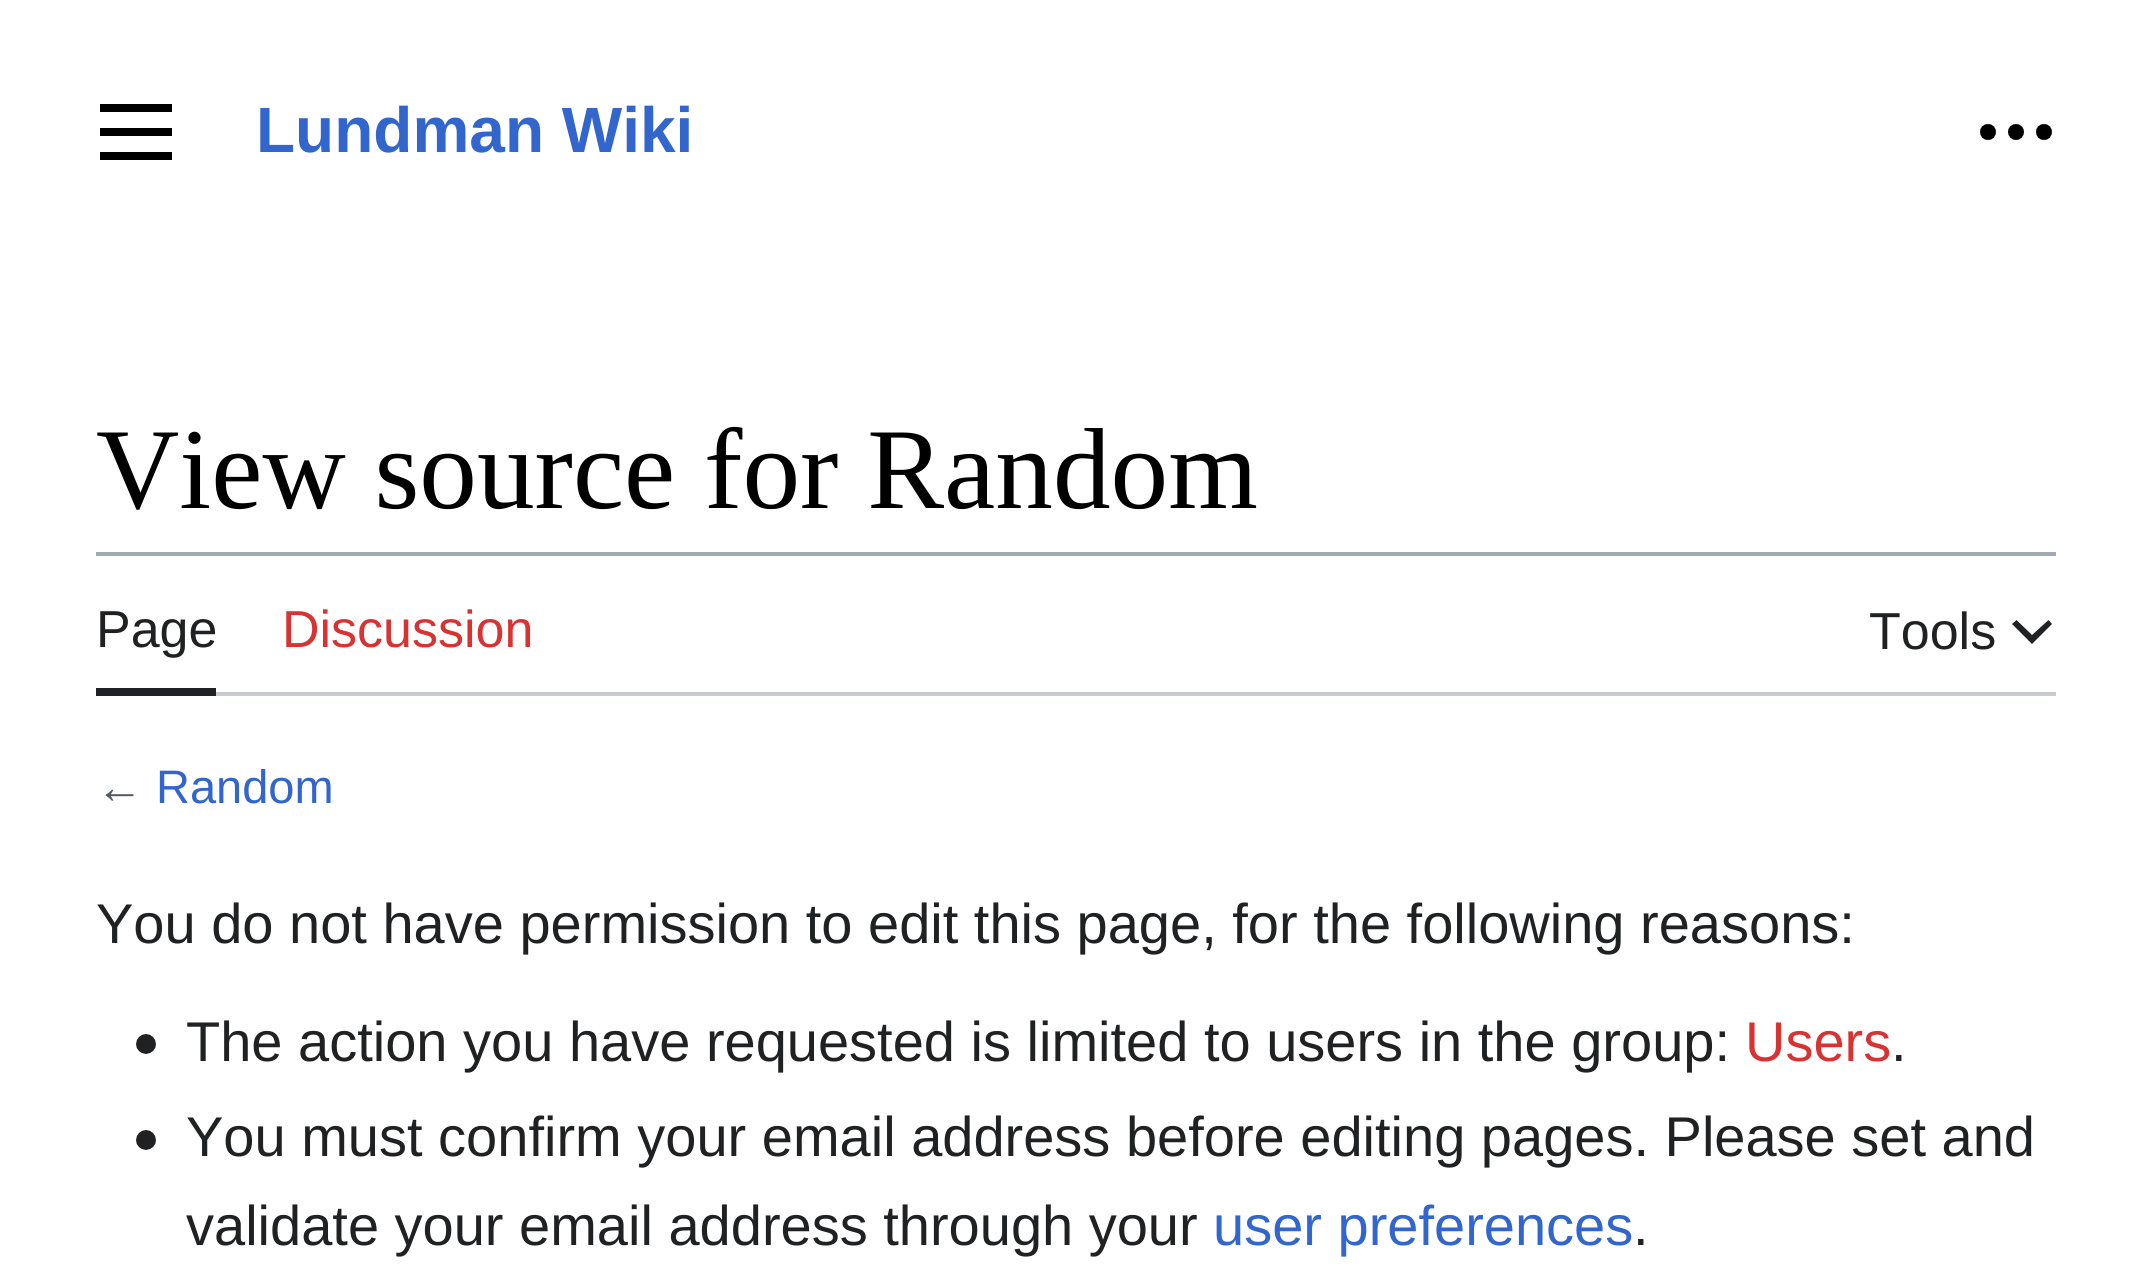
import math
import cairo


def paste(ctx, path, x, y, w, h):
	ctx.save()
	ctx.set_source_surface(cairo.ImageSurface.create_from_png(path), x, y)
	ctx.rectangle(x, y, w, h)
	ctx.fill()
	ctx.restore()

def draw(ctx):
	ctx.set_source_rgb(1, 1, 1)
	ctx.paint()
	paste(ctx, 'media/1.png', 100, 104, 72, 56)
	ctx.select_font_face('Liberation Sans', cairo.FONT_SLANT_NORMAL, cairo.FONT_WEIGHT_BOLD)
	ctx.set_font_size(64)
	ctx.set_source_rgb(0.2, 0.4, 0.8)
	ctx.move_to(256, 152)
	ctx.show_text('Lundman Wiki')
	paste(ctx, 'media/2.png', 1980, 124, 72, 16)
	ctx.set_source_rgb(0.635, 0.663, 0.694)
	ctx.rectangle(96, 552, 1960, 4)
	ctx.fill()
	ctx.select_font_face('Liberation Serif')
	ctx.set_font_size(115.25)
	ctx.set_source_rgb(0, 0, 0)
	ctx.move_to(96, 508)
	ctx.show_text('View source for Random')
	ctx.set_source_rgb(0.784, 0.8, 0.82)
	ctx.rectangle(216, 692, 1840, 4)
	ctx.fill()
	ctx.set_source_rgb(0.125, 0.129, 0.133)
	ctx.rectangle(96, 688, 120, 8)
	ctx.fill()
	ctx.select_font_face('Liberation Sans')
	ctx.set_font_size(52)
	ctx.move_to(96, 647)
	ctx.show_text('Page')
	ctx.set_source_rgb(0.843, 0.2, 0.2)
	ctx.move_to(282, 647)
	ctx.show_text('Discussion')
	ctx.set_source_rgb(0.125, 0.129, 0.133)
	ctx.move_to(1869, 649)
	ctx.show_text('Tools')
	ctx.new_path()
	ctx.move_to(2052, 624)
	ctx.line_to(2048.5, 620)
	ctx.line_to(2032, 635)
	ctx.line_to(2016.5, 620)
	ctx.line_to(2012, 624)
	ctx.line_to(2032, 644)
	ctx.line_to(2052, 624)
	ctx.fill()
	ctx.set_font_size(47)
	ctx.set_source_rgb(0.329, 0.349, 0.365)
	ctx.move_to(96, 803)
	ctx.show_text('←')
	ctx.set_source_rgb(0.2, 0.4, 0.8)
	ctx.move_to(156, 803)
	ctx.show_text('Random')
	ctx.set_font_size(56)
	ctx.set_source_rgb(0.125, 0.129, 0.133)
	ctx.move_to(96, 943)
	ctx.show_text('You do not have permission to edit this page, for the following reasons:')
	paste(ctx, 'media/3.png', 136, 1034, 20, 20)
	ctx.move_to(186, 1061)
	ctx.show_text('The action you have requested is limited to users in the group:')
	ctx.set_source_rgb(0.843, 0.2, 0.2)
	ctx.move_to(1745, 1061)
	ctx.show_text('Users')
	ctx.set_source_rgb(0.125, 0.129, 0.133)
	ctx.move_to(1891, 1061)
	ctx.show_text('.')
	paste(ctx, 'media/3.png', 136, 1130, 20, 20)
	ctx.move_to(186, 1156)
	ctx.show_text('You must confirm your email address before editing pages. Please set and')
	ctx.move_to(186, 1245)
	ctx.show_text('validate your email address through your')
	ctx.set_source_rgb(0.2, 0.4, 0.8)
	ctx.move_to(1213, 1245)
	ctx.show_text('user preferences')
	ctx.set_source_rgb(0.125, 0.129, 0.133)
	ctx.move_to(1633, 1245)
	ctx.show_text('.')


surface = cairo.ImageSurface(cairo.FORMAT_RGB24, 2150, 1281)
ctx = cairo.Context(surface)
options = cairo.FontOptions()
options.set_hint_metrics(cairo.HINT_METRICS_OFF)
options.set_hint_style(cairo.HINT_STYLE_NONE)
ctx.set_font_options(options)
ctx.set_miter_limit(4)
draw(ctx)
surface.write_to_png('image.png')
